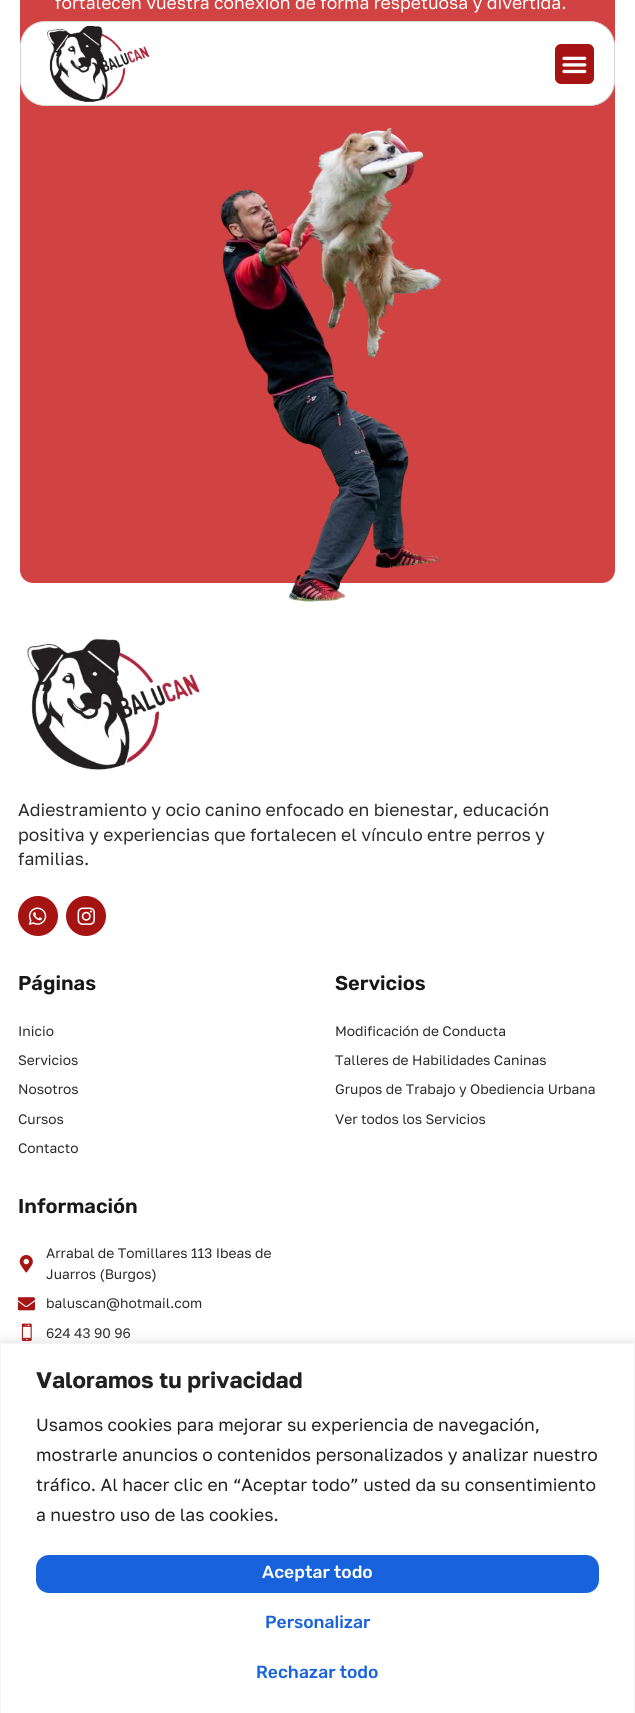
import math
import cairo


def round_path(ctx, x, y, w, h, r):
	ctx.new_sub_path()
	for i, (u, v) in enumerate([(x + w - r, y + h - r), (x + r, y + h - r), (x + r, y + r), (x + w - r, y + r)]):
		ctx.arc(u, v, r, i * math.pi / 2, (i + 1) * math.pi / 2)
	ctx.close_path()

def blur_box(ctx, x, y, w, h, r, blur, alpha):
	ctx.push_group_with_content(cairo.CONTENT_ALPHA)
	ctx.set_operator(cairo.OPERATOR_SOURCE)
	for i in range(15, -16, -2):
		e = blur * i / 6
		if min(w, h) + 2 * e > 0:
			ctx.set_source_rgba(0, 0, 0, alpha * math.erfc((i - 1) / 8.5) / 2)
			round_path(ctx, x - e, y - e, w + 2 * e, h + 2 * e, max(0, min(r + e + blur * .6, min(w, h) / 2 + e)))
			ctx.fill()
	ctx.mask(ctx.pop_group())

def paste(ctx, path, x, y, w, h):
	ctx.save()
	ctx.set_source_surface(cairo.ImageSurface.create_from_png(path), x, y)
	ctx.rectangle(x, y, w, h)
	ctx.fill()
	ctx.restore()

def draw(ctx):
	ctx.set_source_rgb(1, 1, 1)
	ctx.paint()
	ctx.set_source_rgb(0.82, 0.259, 0.259)
	round_path(ctx, 20, -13, 595, 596, 13)
	ctx.fill()
	ctx.select_font_face('Golos Text')
	ctx.set_font_size(17.5)
	ctx.set_source_rgb(1, 1, 1)
	ctx.move_to(55, 9)
	ctx.show_text('fortalecen vuestra conexión de forma respetuosa y divertida.')
	paste(ctx, 'media/1.png', 220, 127, 223, 475)
	paste(ctx, 'media/2.png', 27, 638, 173, 132)
	ctx.set_source_rgb(0.173, 0.173, 0.173)
	for x, y, s in [
		(18, 816, 'Adiestramiento y ocio canino enfocado en bienestar, educación'),
		(18, 841, 'positiva y experiencias que fortalecen el vínculo entre perros y'),
		(18, 865, 'familias.'),
	]:
		ctx.move_to(x, y)
		ctx.show_text(s)
	ctx.set_source_rgb(0.651, 0.078, 0.078)
	ctx.new_path()
	ctx.arc(38, 916, 20, 0, 2 * math.pi)
	ctx.fill()
	paste(ctx, 'media/3.png', 28, 907, 19, 18)
	ctx.arc(86, 916, 20, 0, 2 * math.pi)
	ctx.fill()
	paste(ctx, 'media/4.png', 77, 907, 18, 18)
	ctx.select_font_face('Rubik SemiBold')
	ctx.set_font_size(20)
	ctx.set_source_rgb(0.094, 0.094, 0.094)
	ctx.move_to(18, 990)
	ctx.show_text('Páginas')
	ctx.select_font_face('Golos Text')
	ctx.set_font_size(13.75)
	ctx.set_source_rgb(0.173, 0.173, 0.173)
	for x, y, s in [
		(18, 1036, 'Inicio'),
		(18, 1065, 'Servicios'),
		(18, 1094, 'Nosotros'),
		(18, 1124, 'Cursos'),
		(18, 1153, 'Contacto'),
	]:
		ctx.move_to(x, y)
		ctx.show_text(s)
	ctx.select_font_face('Rubik SemiBold')
	ctx.set_font_size(20)
	ctx.set_source_rgb(0.094, 0.094, 0.094)
	ctx.move_to(335, 990)
	ctx.show_text('Servicios')
	ctx.select_font_face('Golos Text')
	ctx.set_font_size(13.75)
	ctx.set_source_rgb(0.173, 0.173, 0.173)
	for x, y, s in [
		(335, 1036, 'Modificación de Conducta'),
		(335, 1065, 'Talleres de Habilidades Caninas'),
		(335, 1094, 'Grupos de Trabajo y Obediencia Urbana'),
		(335, 1124, 'Ver todos los Servicios'),
	]:
		ctx.move_to(x, y)
		ctx.show_text(s)
	ctx.select_font_face('Rubik SemiBold')
	ctx.set_font_size(20)
	ctx.set_source_rgb(0.094, 0.094, 0.094)
	ctx.move_to(18, 1213)
	ctx.show_text('Información')
	paste(ctx, 'media/5.png', 19, 1255, 14, 18)
	ctx.select_font_face('Golos Text')
	ctx.set_font_size(13.75)
	ctx.set_source_rgb(0.173, 0.173, 0.173)
	ctx.move_to(46, 1258)
	ctx.show_text('Arrabal de Tomillares 113 Ibeas de')
	ctx.move_to(46, 1279)
	ctx.show_text('Juarros (Burgos)')
	paste(ctx, 'media/6.png', 18, 1297, 17, 14)
	ctx.move_to(46, 1308)
	ctx.show_text('baluscan@hotmail.com')
	paste(ctx, 'media/7.png', 21, 1323, 11, 19)
	ctx.move_to(46, 1338)
	ctx.show_text('624 43 90 96')
	ctx.set_source_rgb(1, 1, 1)
	round_path(ctx, 20.5, 21.5, 594, 84, 24.5)
	ctx.fill_preserve()
	ctx.set_source_rgb(0.839, 0.839, 0.839)
	ctx.set_line_width(1)
	ctx.stroke()
	paste(ctx, 'media/8.png', 47, 25, 103, 77)
	ctx.set_source_rgb(0.651, 0.078, 0.078)
	round_path(ctx, 555, 44, 39, 40, 6)
	ctx.fill()
	paste(ctx, 'media/9.png', 562, 56, 25, 18)
	ctx.set_source_rgb(0.675, 0.671, 0.671)
	blur_box(ctx, 0, 1341, 635, 372, 0, 6, 0.3)
	ctx.set_source_rgb(1, 1, 1)
	ctx.rectangle(0.5, 1343.5, 634, 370)
	ctx.fill_preserve()
	ctx.set_source_rgb(0.957, 0.957, 0.957)
	ctx.stroke()
	ctx.select_font_face('Golos Text', cairo.FONT_SLANT_NORMAL, cairo.FONT_WEIGHT_BOLD)
	ctx.set_font_size(22.5)
	ctx.set_source_rgb(0.129, 0.129, 0.129)
	ctx.move_to(36, 1388)
	ctx.show_text('Valoramos tu privacidad')
	ctx.select_font_face('Golos Text')
	ctx.set_font_size(17.5)
	for x, y, s in [
		(36, 1431, 'Usamos cookies para mejorar su experiencia de navegación,'),
		(36, 1461, 'mostrarle anuncios o contenidos personalizados y analizar nuestro'),
		(36, 1491, 'tráfico. Al hacer clic en “Aceptar todo” usted da su consentimiento'),
		(36, 1521, 'a nuestro uso de las cookies.'),
	]:
		ctx.move_to(x, y)
		ctx.show_text(s)
	ctx.set_source_rgb(0.094, 0.388, 0.863)
	round_path(ctx, 36, 1555, 563, 38, 13)
	ctx.fill()
	ctx.select_font_face('Rubik Medium')
	ctx.set_source_rgb(1, 1, 1)
	ctx.move_to(262, 1578)
	ctx.show_text('Aceptar todo')
	ctx.set_source_rgb(0.094, 0.388, 0.863)
	ctx.move_to(265, 1628)
	ctx.show_text('Personalizar')
	ctx.move_to(256, 1678)
	ctx.show_text('Rechazar todo')


surface = cairo.ImageSurface(cairo.FORMAT_RGB24, 635, 1713)
ctx = cairo.Context(surface)
options = cairo.FontOptions()
options.set_hint_metrics(cairo.HINT_METRICS_OFF)
options.set_hint_style(cairo.HINT_STYLE_NONE)
ctx.set_font_options(options)
ctx.set_miter_limit(4)
draw(ctx)
surface.write_to_png('image.png')
